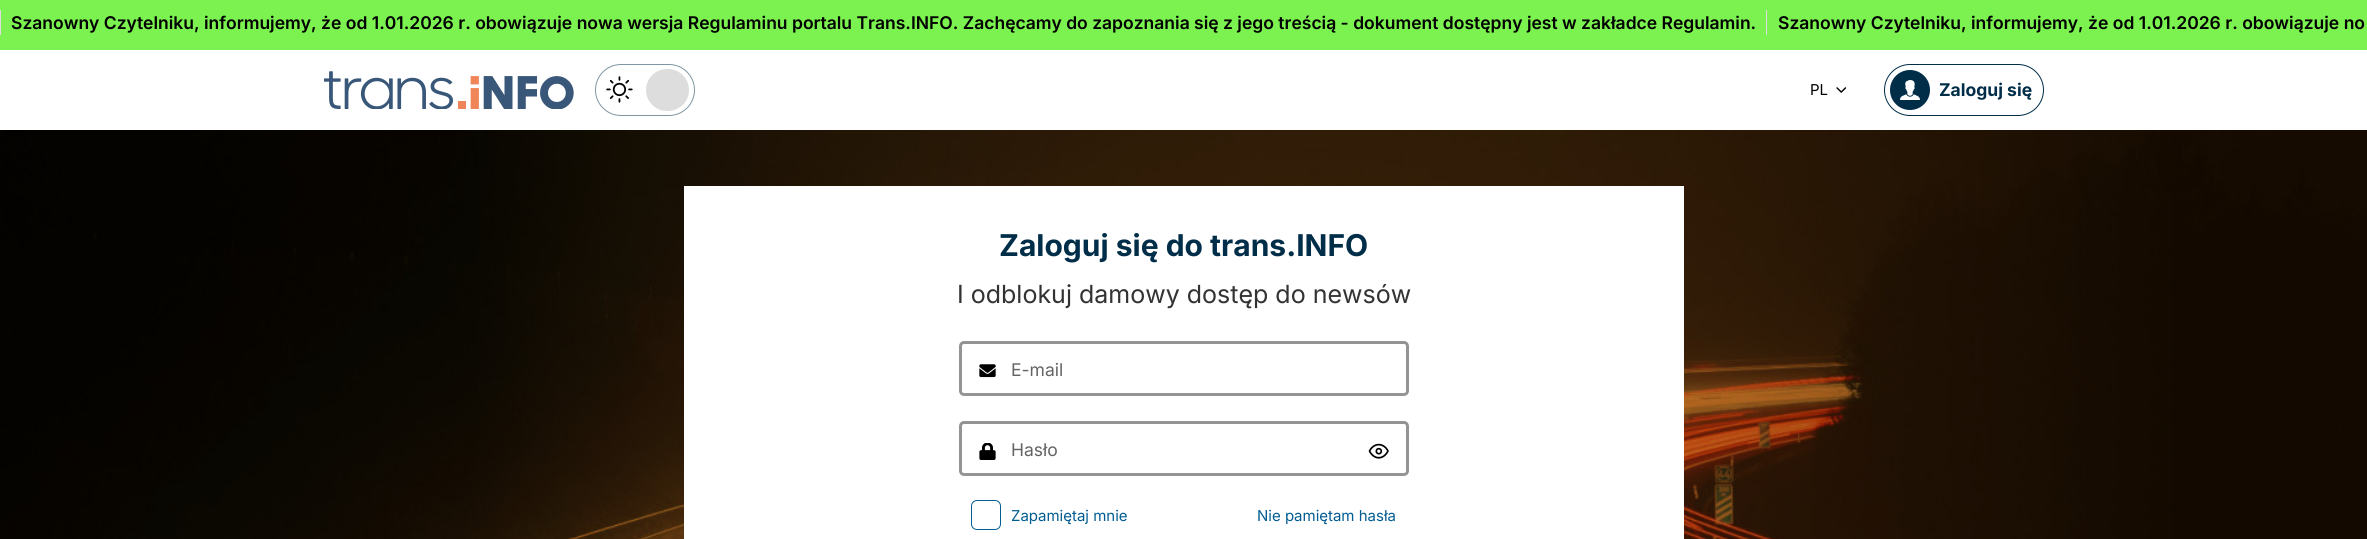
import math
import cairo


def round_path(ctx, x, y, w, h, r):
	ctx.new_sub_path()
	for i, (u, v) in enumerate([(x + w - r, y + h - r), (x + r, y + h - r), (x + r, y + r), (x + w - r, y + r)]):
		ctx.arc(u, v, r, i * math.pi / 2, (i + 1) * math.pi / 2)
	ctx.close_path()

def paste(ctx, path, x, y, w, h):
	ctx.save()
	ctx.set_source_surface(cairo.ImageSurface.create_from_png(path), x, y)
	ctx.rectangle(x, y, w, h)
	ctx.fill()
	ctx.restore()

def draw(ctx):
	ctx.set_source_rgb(1, 1, 1)
	ctx.paint()
	ctx.set_source_rgb(0.482, 0.949, 0.314)
	ctx.rectangle(0, 0, 2367, 50)
	ctx.fill()
	ctx.set_source_rgb(0.867, 0.867, 0.867)
	ctx.rectangle(0, 10, 1, 25)
	ctx.fill()
	ctx.select_font_face('Inter SemiBold')
	ctx.set_font_size(17.5)
	ctx.set_source_rgb(0, 0, 0)
	ctx.move_to(11, 29)
	ctx.show_text('Szanowny Czytelniku, informujemy, że od 1.01.2026 r. obowiązuje nowa wersja Regulaminu portalu Trans.INFO. Zachęcamy do zapoznania się z jego treścią - dokument dostępny jest w zakładce Regulamin.')
	ctx.set_source_rgb(0.867, 0.867, 0.867)
	ctx.rectangle(1766, 10, 1, 25)
	ctx.fill()
	ctx.set_source_rgb(0, 0, 0)
	ctx.move_to(1778, 29)
	ctx.show_text('Szanowny Czytelniku, informujemy, że od 1.01.2026 r. obowiązuje no')
	paste(ctx, 'media/1.png', 324, 71, 250, 38)
	round_path(ctx, 595.5, 64.5, 99, 51, 25.5)
	ctx.set_source_rgb(0.502, 0.588, 0.643)
	ctx.set_line_width(1)
	ctx.stroke()
	paste(ctx, 'media/2.png', 606, 76, 27, 27)
	ctx.set_source_rgb(0.867, 0.867, 0.867)
	round_path(ctx, 646, 69, 43, 42, 21)
	ctx.fill()
	ctx.select_font_face('Inter')
	ctx.set_font_size(15)
	ctx.set_source_rgb(0, 0, 0)
	ctx.move_to(1810, 95)
	ctx.show_text('PL')
	paste(ctx, 'media/3.png', 1836, 87, 11, 6)
	round_path(ctx, 1884.5, 64.5, 159, 51, 25.5)
	ctx.set_source_rgb(0, 0.176, 0.282)
	ctx.stroke()
	ctx.arc(1910, 90, 20, 0, 2 * math.pi)
	ctx.fill()
	paste(ctx, 'media/4.png', 1900, 80, 20, 20)
	ctx.select_font_face('Inter', cairo.FONT_SLANT_NORMAL, cairo.FONT_WEIGHT_BOLD)
	ctx.set_font_size(17.5)
	ctx.move_to(1939, 96)
	ctx.show_text('Zaloguj się')
	paste(ctx, 'media/5.png', 0, 130, 2367, 409)
	ctx.set_source_rgb(1, 1, 1)
	ctx.rectangle(684, 186, 1000, 353)
	ctx.fill()
	ctx.set_font_size(30)
	ctx.set_source_rgb(0, 0.176, 0.282)
	ctx.move_to(999, 256)
	ctx.show_text('Zaloguj się do trans.INFO')
	ctx.select_font_face('Inter')
	ctx.set_font_size(25)
	ctx.set_source_rgb(0.2, 0.2, 0.2)
	ctx.move_to(957, 303)
	ctx.show_text('I odblokuj damowy dostęp do newsów')
	round_path(ctx, 960.5, 342.5, 447, 52, 3.5)
	ctx.set_source_rgb(0.58, 0.58, 0.58)
	ctx.set_line_width(3)
	ctx.stroke()
	paste(ctx, 'media/6.png', 979, 364, 17, 14)
	ctx.set_font_size(17.5)
	ctx.set_source_rgb(0.392, 0.392, 0.392)
	ctx.move_to(1011, 376)
	ctx.show_text('E-mail')
	round_path(ctx, 960.5, 422.5, 447, 52, 3.5)
	ctx.set_source_rgb(0.58, 0.58, 0.58)
	ctx.stroke()
	paste(ctx, 'media/7.png', 979, 443, 17, 17)
	ctx.set_source_rgb(0.392, 0.392, 0.392)
	ctx.move_to(1011, 456)
	ctx.show_text('Hasło')
	ctx.new_path()
	ctx.move_to(1369.5, 451)
	ctx.curve_to(1374, 442.5, 1383.5, 442.5, 1388, 451)
	ctx.curve_to(1383.5, 460, 1374, 460, 1369.5, 451)
	ctx.close_path()
	ctx.set_source_rgb(0, 0, 0)
	ctx.set_line_width(1.7)
	ctx.set_line_cap(cairo.LINE_CAP_ROUND)
	ctx.set_line_join(cairo.LINE_JOIN_ROUND)
	ctx.stroke()
	ctx.arc(1378.8, 451.2, 2.5, 0, 2 * math.pi)
	ctx.set_line_cap(cairo.LINE_CAP_BUTT)
	ctx.set_line_join(cairo.LINE_JOIN_MITER)
	ctx.stroke()
	round_path(ctx, 971.5, 500.5, 29, 29, 5.5)
	ctx.set_source_rgb(0.004, 0.361, 0.573)
	ctx.set_line_width(1)
	ctx.stroke()
	ctx.set_font_size(15)
	ctx.move_to(1011, 521)
	ctx.show_text('Zapamiętaj mnie')
	ctx.move_to(1257, 521)
	ctx.show_text('Nie pamiętam hasła')


surface = cairo.ImageSurface(cairo.FORMAT_RGB24, 2367, 539)
ctx = cairo.Context(surface)
options = cairo.FontOptions()
options.set_hint_metrics(cairo.HINT_METRICS_OFF)
options.set_hint_style(cairo.HINT_STYLE_NONE)
ctx.set_font_options(options)
ctx.set_miter_limit(4)
draw(ctx)
surface.write_to_png('image.png')
